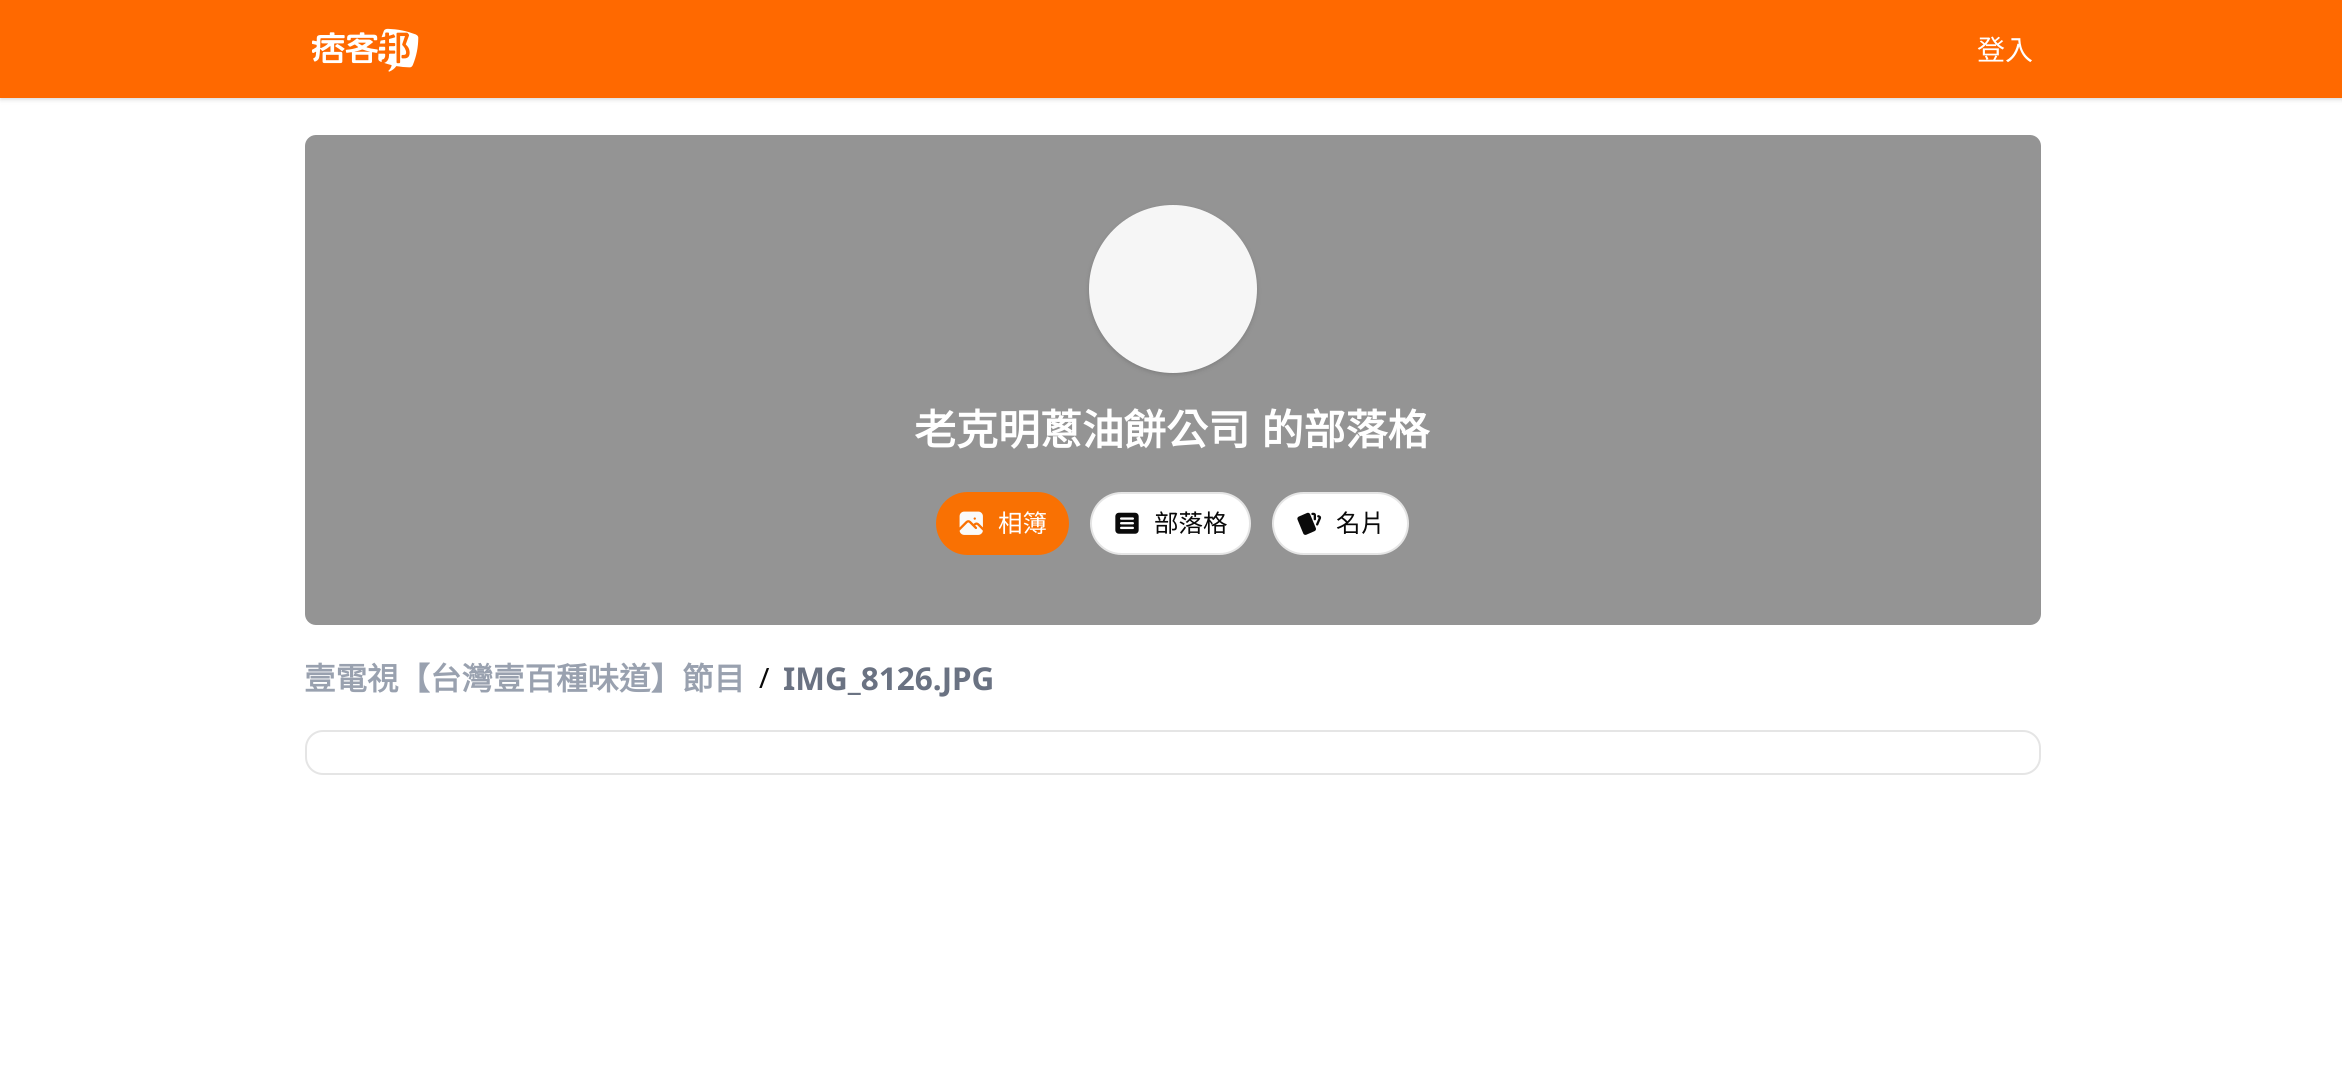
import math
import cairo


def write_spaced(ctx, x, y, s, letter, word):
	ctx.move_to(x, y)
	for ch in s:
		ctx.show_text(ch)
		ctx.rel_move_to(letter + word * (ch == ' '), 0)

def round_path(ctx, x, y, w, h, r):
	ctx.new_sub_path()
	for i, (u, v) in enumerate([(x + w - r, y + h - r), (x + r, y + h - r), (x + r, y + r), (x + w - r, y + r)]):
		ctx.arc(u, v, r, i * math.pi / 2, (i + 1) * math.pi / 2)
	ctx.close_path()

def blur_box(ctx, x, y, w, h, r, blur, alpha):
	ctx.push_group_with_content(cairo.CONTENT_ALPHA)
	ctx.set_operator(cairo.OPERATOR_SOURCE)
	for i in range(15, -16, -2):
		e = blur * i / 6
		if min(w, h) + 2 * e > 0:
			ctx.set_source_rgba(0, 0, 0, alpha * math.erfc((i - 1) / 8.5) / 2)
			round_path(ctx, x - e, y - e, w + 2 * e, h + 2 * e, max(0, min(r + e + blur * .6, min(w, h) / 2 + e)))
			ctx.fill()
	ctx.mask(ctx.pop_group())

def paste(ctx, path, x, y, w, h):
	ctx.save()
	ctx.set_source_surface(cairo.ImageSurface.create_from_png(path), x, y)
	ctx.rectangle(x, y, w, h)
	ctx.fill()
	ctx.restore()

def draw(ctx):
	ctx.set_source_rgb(1, 1, 1)
	ctx.paint()
	ctx.set_source_rgb(0, 0, 0)
	blur_box(ctx, 2, 4, 2340, 94, 0, 2, 0.1)
	blur_box(ctx, 0, 2, 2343, 98, 0, 2.5, 0.1)
	ctx.set_source_rgb(1, 0.412, 0)
	ctx.rectangle(0, 0, 2342, 98)
	ctx.fill()
	paste(ctx, 'media/1.png', 312, 28, 107, 44)
	ctx.select_font_face('Noto Sans CJK TC')
	ctx.set_font_size(28)
	ctx.set_source_rgb(1, 1, 1)
	ctx.move_to(1977, 60)
	ctx.show_text('登入')
	ctx.set_source_rgb(0.961, 0.961, 0.961)
	round_path(ctx, 305, 135, 1736, 490, 11)
	ctx.fill()
	ctx.set_source_rgba(0, 0, 0, 0.4)
	round_path(ctx, 305, 135, 1736, 490, 11)
	ctx.fill()
	ctx.set_source_rgb(0, 0, 0)
	blur_box(ctx, 1090, 208, 165, 165, 82.5, 2, 0.1)
	blur_box(ctx, 1089, 207, 168, 168, 84, 2.5, 0.1)
	ctx.set_source_rgb(0.961, 0.961, 0.961)
	ctx.arc(1173, 289, 84, 0, 2 * math.pi)
	ctx.fill()
	ctx.select_font_face('Noto Sans CJK TC', cairo.FONT_SLANT_NORMAL, cairo.FONT_WEIGHT_BOLD)
	ctx.set_font_size(42)
	ctx.set_source_rgb(1, 1, 1)
	write_spaced(ctx, 914, 445, '老克明蔥油餅公司 的部落格', 0, 2)
	ctx.set_source_rgb(0.973, 0.443, 0.012)
	round_path(ctx, 936, 492, 133, 63, 31.5)
	ctx.fill()
	paste(ctx, 'media/2.png', 959, 511, 24, 24)
	ctx.select_font_face('Noto Sans CJK TC')
	ctx.set_font_size(24.5)
	ctx.set_source_rgb(1, 1, 1)
	ctx.move_to(998, 532)
	ctx.show_text('相簿')
	round_path(ctx, 1091, 493, 159, 61, 30.5)
	ctx.fill_preserve()
	ctx.set_source_rgb(0.898, 0.898, 0.898)
	ctx.stroke()
	paste(ctx, 'media/3.png', 1115, 512, 24, 22)
	ctx.set_source_rgb(0.039, 0.039, 0.039)
	ctx.move_to(1154, 532)
	ctx.show_text('部落格')
	ctx.set_source_rgb(1, 1, 1)
	round_path(ctx, 1273, 493, 135, 61, 30.5)
	ctx.fill_preserve()
	ctx.set_source_rgb(0.898, 0.898, 0.898)
	ctx.stroke()
	paste(ctx, 'media/4.png', 1297, 512, 25, 23)
	ctx.set_source_rgb(0.039, 0.039, 0.039)
	ctx.move_to(1336, 532)
	ctx.show_text('名片')
	ctx.select_font_face('Noto Sans CJK TC', cairo.FONT_SLANT_NORMAL, cairo.FONT_WEIGHT_BOLD)
	ctx.set_font_size(31.5)
	ctx.set_source_rgb(0.6, 0.631, 0.686)
	ctx.move_to(304, 690)
	ctx.show_text('壹電視【台灣壹百種味道】節目')
	ctx.select_font_face('Noto Sans')
	ctx.set_font_size(28)
	ctx.set_source_rgb(0.039, 0.039, 0.039)
	ctx.move_to(759, 688)
	ctx.show_text('/')
	ctx.select_font_face('Noto Sans', cairo.FONT_SLANT_NORMAL, cairo.FONT_WEIGHT_BOLD)
	ctx.set_font_size(31.5)
	ctx.set_source_rgb(0.416, 0.447, 0.51)
	ctx.move_to(783, 690)
	ctx.show_text('IMG_8126.JPG')
	round_path(ctx, 306, 731, 1734, 43, 17)
	ctx.set_source_rgb(0.898, 0.898, 0.898)
	ctx.stroke()


surface = cairo.ImageSurface(cairo.FORMAT_RGB24, 2342, 1089)
ctx = cairo.Context(surface)
options = cairo.FontOptions()
options.set_hint_metrics(cairo.HINT_METRICS_OFF)
options.set_hint_style(cairo.HINT_STYLE_NONE)
ctx.set_font_options(options)
ctx.set_miter_limit(4)
draw(ctx)
surface.write_to_png('image.png')
